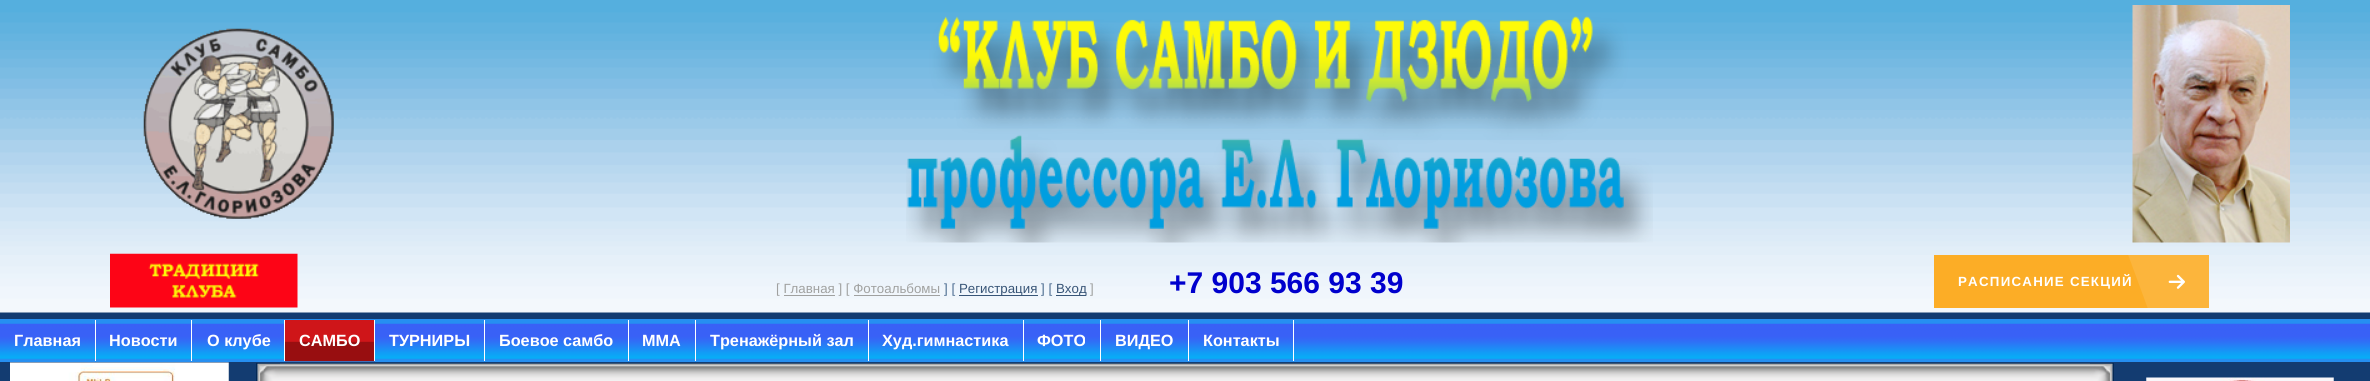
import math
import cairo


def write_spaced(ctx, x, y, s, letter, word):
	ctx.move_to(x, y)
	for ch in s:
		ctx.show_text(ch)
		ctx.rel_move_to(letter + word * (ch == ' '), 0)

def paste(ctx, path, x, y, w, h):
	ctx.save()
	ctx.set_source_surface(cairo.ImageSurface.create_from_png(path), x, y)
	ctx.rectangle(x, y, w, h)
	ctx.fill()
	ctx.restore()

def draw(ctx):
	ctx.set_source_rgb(0.078, 0.235, 0.443)
	ctx.paint()
	paste(ctx, 'media/1.png', 0, 0, 2370, 313)
	paste(ctx, 'media/2.png', 143, 28, 191, 191)
	paste(ctx, 'media/3.png', 906, 16, 747, 227)
	paste(ctx, 'media/4.png', 2132, 5, 158, 238)
	paste(ctx, 'media/5.png', 110, 253, 188, 55)
	ctx.select_font_face('Liberation Sans')
	ctx.set_font_size(13.3)
	ctx.set_source_rgb(0.627, 0.631, 0.627)
	ctx.move_to(776, 293)
	ctx.show_text('[ Главная ] [ Фотоальбомы')
	ctx.set_source_rgb(0.302, 0.427, 0.569)
	ctx.move_to(944, 293)
	ctx.show_text('] [')
	ctx.set_source_rgb(0.22, 0.333, 0.467)
	ctx.rectangle(959, 295, 79, 1)
	ctx.fill()
	ctx.move_to(959, 293)
	ctx.show_text('Регистрация')
	ctx.set_source_rgb(0.302, 0.427, 0.569)
	ctx.move_to(1041, 293)
	ctx.show_text('] [')
	ctx.set_source_rgb(0.22, 0.333, 0.467)
	ctx.rectangle(1056, 295, 30, 1)
	ctx.fill()
	ctx.move_to(1056, 293)
	ctx.show_text('Вход')
	ctx.set_source_rgb(0.627, 0.631, 0.627)
	ctx.move_to(1090, 293)
	ctx.show_text(']')
	ctx.select_font_face('Liberation Sans', cairo.FONT_SLANT_NORMAL, cairo.FONT_WEIGHT_BOLD)
	ctx.set_font_size(30)
	ctx.set_source_rgb(0, 0, 0.804)
	ctx.move_to(1169, 293)
	ctx.show_text('+7 903 566 93 39')
	ctx.set_source_rgb(0.627, 0.631, 0.627)
	ctx.rectangle(784, 295, 51, 1)
	ctx.rectangle(854, 295, 86, 1)
	ctx.fill()
	ctx.set_source_rgb(0.988, 0.678, 0.149)
	ctx.rectangle(1934, 255, 214, 53)
	ctx.fill()
	ctx.set_font_size(13.3)
	ctx.set_source_rgb(1, 1, 1)
	write_spaced(ctx, 1958, 286, 'РАСПИСАНИЕ СЕКЦИЙ', 1.25, 0)
	ctx.save()
	ctx.rectangle(1934, 255, 275, 53)
	ctx.clip()
	ctx.set_source_rgb(0.988, 0.71, 0.235)
	ctx.new_path()
	ctx.move_to(2126, 249)
	ctx.line_to(2203, 221)
	ctx.line_to(2239, 319)
	ctx.line_to(2162, 347)
	ctx.close_path()
	ctx.fill()
	ctx.restore()
	paste(ctx, 'media/6.png', 2168, 274, 17, 15)
	ctx.set_source_rgb(0.149, 0.561, 0.945)
	ctx.rectangle(0, 319, 2370, 43)
	ctx.fill()
	paste(ctx, 'media/7.png', 0, 323, 2370, 36)
	ctx.set_source_rgb(1, 1, 1)
	ctx.rectangle(95, 320, 1, 41)
	ctx.fill()
	ctx.set_font_size(16.25)
	ctx.move_to(14, 346)
	ctx.show_text('Главная')
	ctx.rectangle(191, 320, 1, 41)
	ctx.fill()
	ctx.move_to(109, 346)
	ctx.show_text('Новости')
	ctx.rectangle(284, 320, 1, 41)
	ctx.fill()
	ctx.move_to(207, 346)
	ctx.show_text('О клубе')
	paste(ctx, 'media/8.png', 285, 320, 90, 42)
	ctx.rectangle(374, 320, 1, 41)
	ctx.fill()
	ctx.move_to(299, 346)
	ctx.show_text('САМБО')
	ctx.rectangle(484, 320, 1, 41)
	ctx.fill()
	ctx.move_to(389, 346)
	ctx.show_text('ТУРНИРЫ')
	ctx.rectangle(628, 320, 1, 41)
	ctx.fill()
	ctx.move_to(499, 346)
	ctx.show_text('Боевое самбо')
	ctx.rectangle(695, 320, 1, 41)
	ctx.fill()
	ctx.move_to(642, 346)
	ctx.show_text('ММА')
	ctx.rectangle(868, 320, 1, 41)
	ctx.fill()
	ctx.move_to(710, 346)
	ctx.show_text('Тренажёрный зал')
	ctx.rectangle(1023, 320, 1, 41)
	ctx.fill()
	ctx.move_to(882, 346)
	ctx.show_text('Худ.гимнастика')
	ctx.rectangle(1100, 320, 1, 41)
	ctx.fill()
	ctx.move_to(1037, 346)
	ctx.show_text('ФОТО')
	ctx.rectangle(1188, 320, 1, 41)
	ctx.fill()
	ctx.move_to(1115, 346)
	ctx.show_text('ВИДЕО')
	ctx.rectangle(1293, 320, 1, 41)
	ctx.fill()
	ctx.move_to(1203, 346)
	ctx.show_text('Контакты')
	paste(ctx, 'media/9.png', 10, 362, 219, 19)
	ctx.rectangle(256.5, 363.5, 1857, 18)
	ctx.set_source_rgb(0.02, 0.161, 0.329)
	ctx.set_line_width(1)
	ctx.stroke()
	paste(ctx, 'media/10.png', 257, 363, 23, 18)
	paste(ctx, 'media/11.png', 280, 363, 1810, 18)
	paste(ctx, 'media/12.png', 2090, 363, 23, 18)
	paste(ctx, 'media/13.png', 2146, 377, 188, 4)


surface = cairo.ImageSurface(cairo.FORMAT_RGB24, 2370, 381)
ctx = cairo.Context(surface)
options = cairo.FontOptions()
options.set_hint_metrics(cairo.HINT_METRICS_OFF)
options.set_hint_style(cairo.HINT_STYLE_NONE)
ctx.set_font_options(options)
ctx.set_miter_limit(4)
draw(ctx)
surface.write_to_png('image.png')
